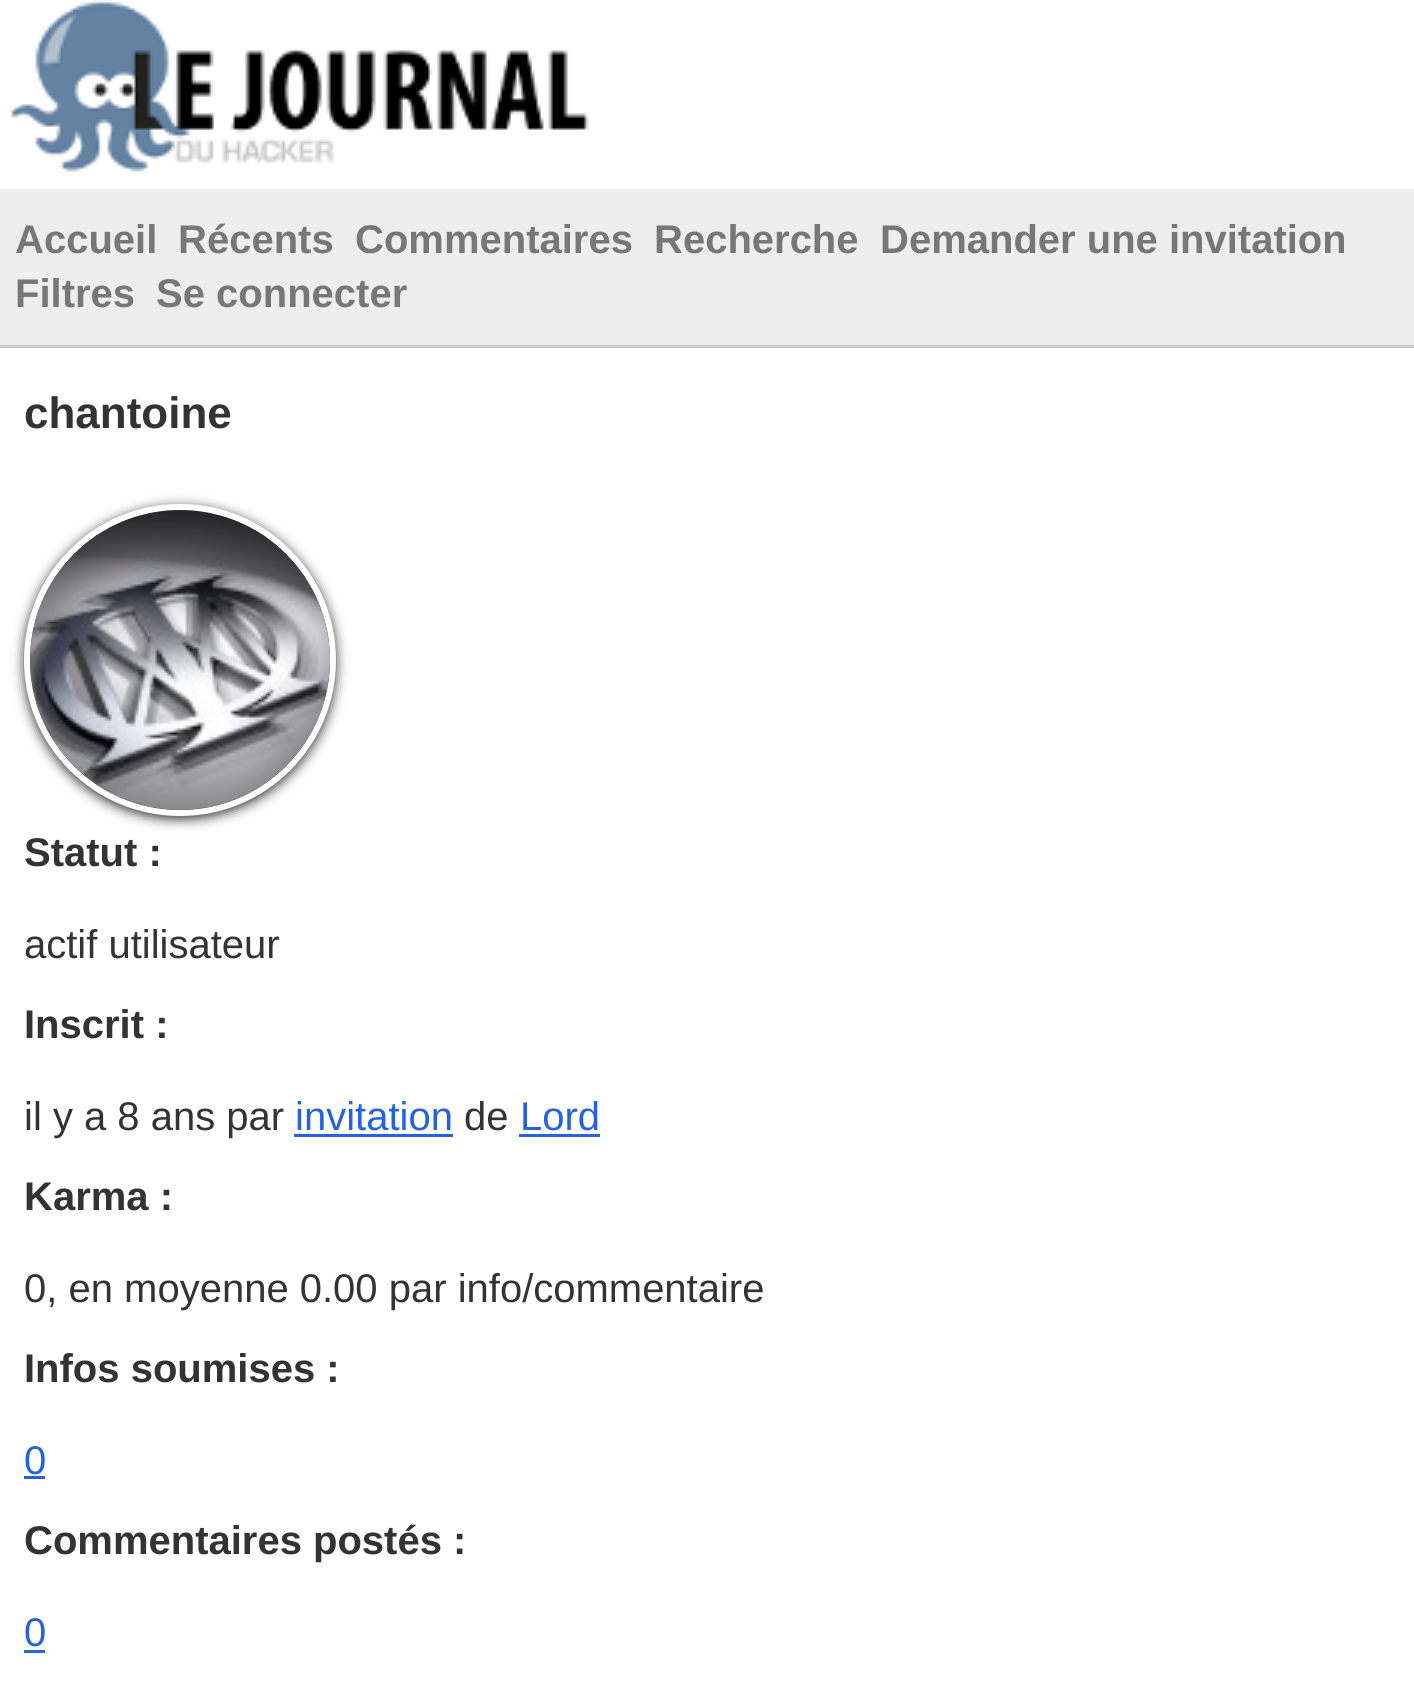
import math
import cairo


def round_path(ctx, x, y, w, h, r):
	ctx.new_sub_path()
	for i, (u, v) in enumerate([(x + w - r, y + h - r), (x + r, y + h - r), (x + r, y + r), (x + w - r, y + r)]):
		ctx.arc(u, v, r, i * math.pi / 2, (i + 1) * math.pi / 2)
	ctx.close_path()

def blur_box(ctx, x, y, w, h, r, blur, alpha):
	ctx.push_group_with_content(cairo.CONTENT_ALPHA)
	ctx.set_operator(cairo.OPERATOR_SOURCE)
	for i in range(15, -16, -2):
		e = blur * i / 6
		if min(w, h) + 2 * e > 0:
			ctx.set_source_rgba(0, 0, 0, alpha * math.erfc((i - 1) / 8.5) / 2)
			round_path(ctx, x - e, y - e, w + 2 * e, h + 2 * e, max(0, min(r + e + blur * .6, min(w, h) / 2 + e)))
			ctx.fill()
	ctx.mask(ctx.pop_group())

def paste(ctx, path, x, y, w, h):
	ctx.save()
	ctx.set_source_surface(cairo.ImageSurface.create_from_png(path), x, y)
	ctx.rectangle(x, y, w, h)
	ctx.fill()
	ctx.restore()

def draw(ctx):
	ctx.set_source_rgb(1, 1, 1)
	ctx.paint()
	paste(ctx, 'media/1.png', 11, 0, 578, 172)
	ctx.set_source_rgb(0.933, 0.933, 0.933)
	ctx.rectangle(0, 189, 1414, 156)
	ctx.fill()
	ctx.set_source_rgb(0.8, 0.8, 0.8)
	ctx.rectangle(0, 345, 1414, 3)
	ctx.fill()
	ctx.select_font_face('Liberation Sans', cairo.FONT_SLANT_NORMAL, cairo.FONT_WEIGHT_BOLD)
	ctx.set_font_size(40)
	ctx.set_source_rgb(0.467, 0.467, 0.467)
	for x, y, s in [
		(15, 253, 'Accueil'),
		(178, 253, 'Récents'),
		(355, 253, 'Commentaires'),
		(654, 253, 'Recherche'),
		(880, 253, 'Demander une invitation'),
		(15, 307, 'Filtres'),
		(156, 307, 'Se connecter'),
	]:
		ctx.move_to(x, y)
		ctx.show_text(s)
	ctx.set_font_size(44)
	ctx.set_source_rgb(0.2, 0.2, 0.2)
	ctx.move_to(24, 428)
	ctx.show_text('chantoine')
	ctx.set_source_rgb(0, 0, 0)
	blur_box(ctx, 24, 507, 312, 312, 156, 6, 0.8)
	ctx.arc(180, 660, 153, 0, 2 * math.pi)
	ctx.set_source_rgb(1, 1, 1)
	ctx.set_line_width(6)
	ctx.stroke()
	paste(ctx, 'media/2.png', 30, 510, 300, 300)
	ctx.set_font_size(40)
	ctx.set_source_rgb(0.2, 0.2, 0.2)
	ctx.move_to(24, 866)
	ctx.show_text('Statut :')
	ctx.select_font_face('Liberation Sans')
	ctx.move_to(24, 958)
	ctx.show_text('actif utilisateur')
	ctx.select_font_face('Liberation Sans', cairo.FONT_SLANT_NORMAL, cairo.FONT_WEIGHT_BOLD)
	ctx.move_to(24, 1038)
	ctx.show_text('Inscrit :')
	ctx.select_font_face('Liberation Sans')
	ctx.move_to(24, 1130)
	ctx.show_text('il y a 8 ans par')
	ctx.set_source_rgb(0.145, 0.384, 0.863)
	ctx.move_to(295, 1130)
	ctx.show_text('invitation')
	ctx.rectangle(294, 1134, 159, 3)
	ctx.fill()
	ctx.set_source_rgb(0.2, 0.2, 0.2)
	ctx.move_to(464, 1130)
	ctx.show_text('de')
	ctx.set_source_rgb(0.145, 0.384, 0.863)
	ctx.move_to(520, 1130)
	ctx.show_text('Lord')
	ctx.rectangle(519, 1134, 81, 3)
	ctx.fill()
	ctx.select_font_face('Liberation Sans', cairo.FONT_SLANT_NORMAL, cairo.FONT_WEIGHT_BOLD)
	ctx.set_source_rgb(0.2, 0.2, 0.2)
	ctx.move_to(24, 1210)
	ctx.show_text('Karma :')
	ctx.select_font_face('Liberation Sans')
	ctx.move_to(24, 1302)
	ctx.show_text('0, en moyenne 0.00 par info/commentaire')
	ctx.select_font_face('Liberation Sans', cairo.FONT_SLANT_NORMAL, cairo.FONT_WEIGHT_BOLD)
	ctx.move_to(24, 1382)
	ctx.show_text('Infos soumises :')
	ctx.select_font_face('Liberation Sans')
	ctx.set_source_rgb(0.145, 0.384, 0.863)
	ctx.move_to(24, 1474)
	ctx.show_text('0')
	ctx.rectangle(24, 1476, 21, 3)
	ctx.fill()
	ctx.select_font_face('Liberation Sans', cairo.FONT_SLANT_NORMAL, cairo.FONT_WEIGHT_BOLD)
	ctx.set_source_rgb(0.2, 0.2, 0.2)
	ctx.move_to(24, 1554)
	ctx.show_text('Commentaires postés :')
	ctx.select_font_face('Liberation Sans')
	ctx.set_source_rgb(0.145, 0.384, 0.863)
	ctx.move_to(24, 1646)
	ctx.show_text('0')
	ctx.rectangle(24, 1650, 21, 3)
	ctx.fill()


surface = cairo.ImageSurface(cairo.FORMAT_RGB24, 1414, 1694)
ctx = cairo.Context(surface)
options = cairo.FontOptions()
options.set_hint_metrics(cairo.HINT_METRICS_OFF)
options.set_hint_style(cairo.HINT_STYLE_NONE)
ctx.set_font_options(options)
ctx.set_miter_limit(4)
draw(ctx)
surface.write_to_png('image.png')
